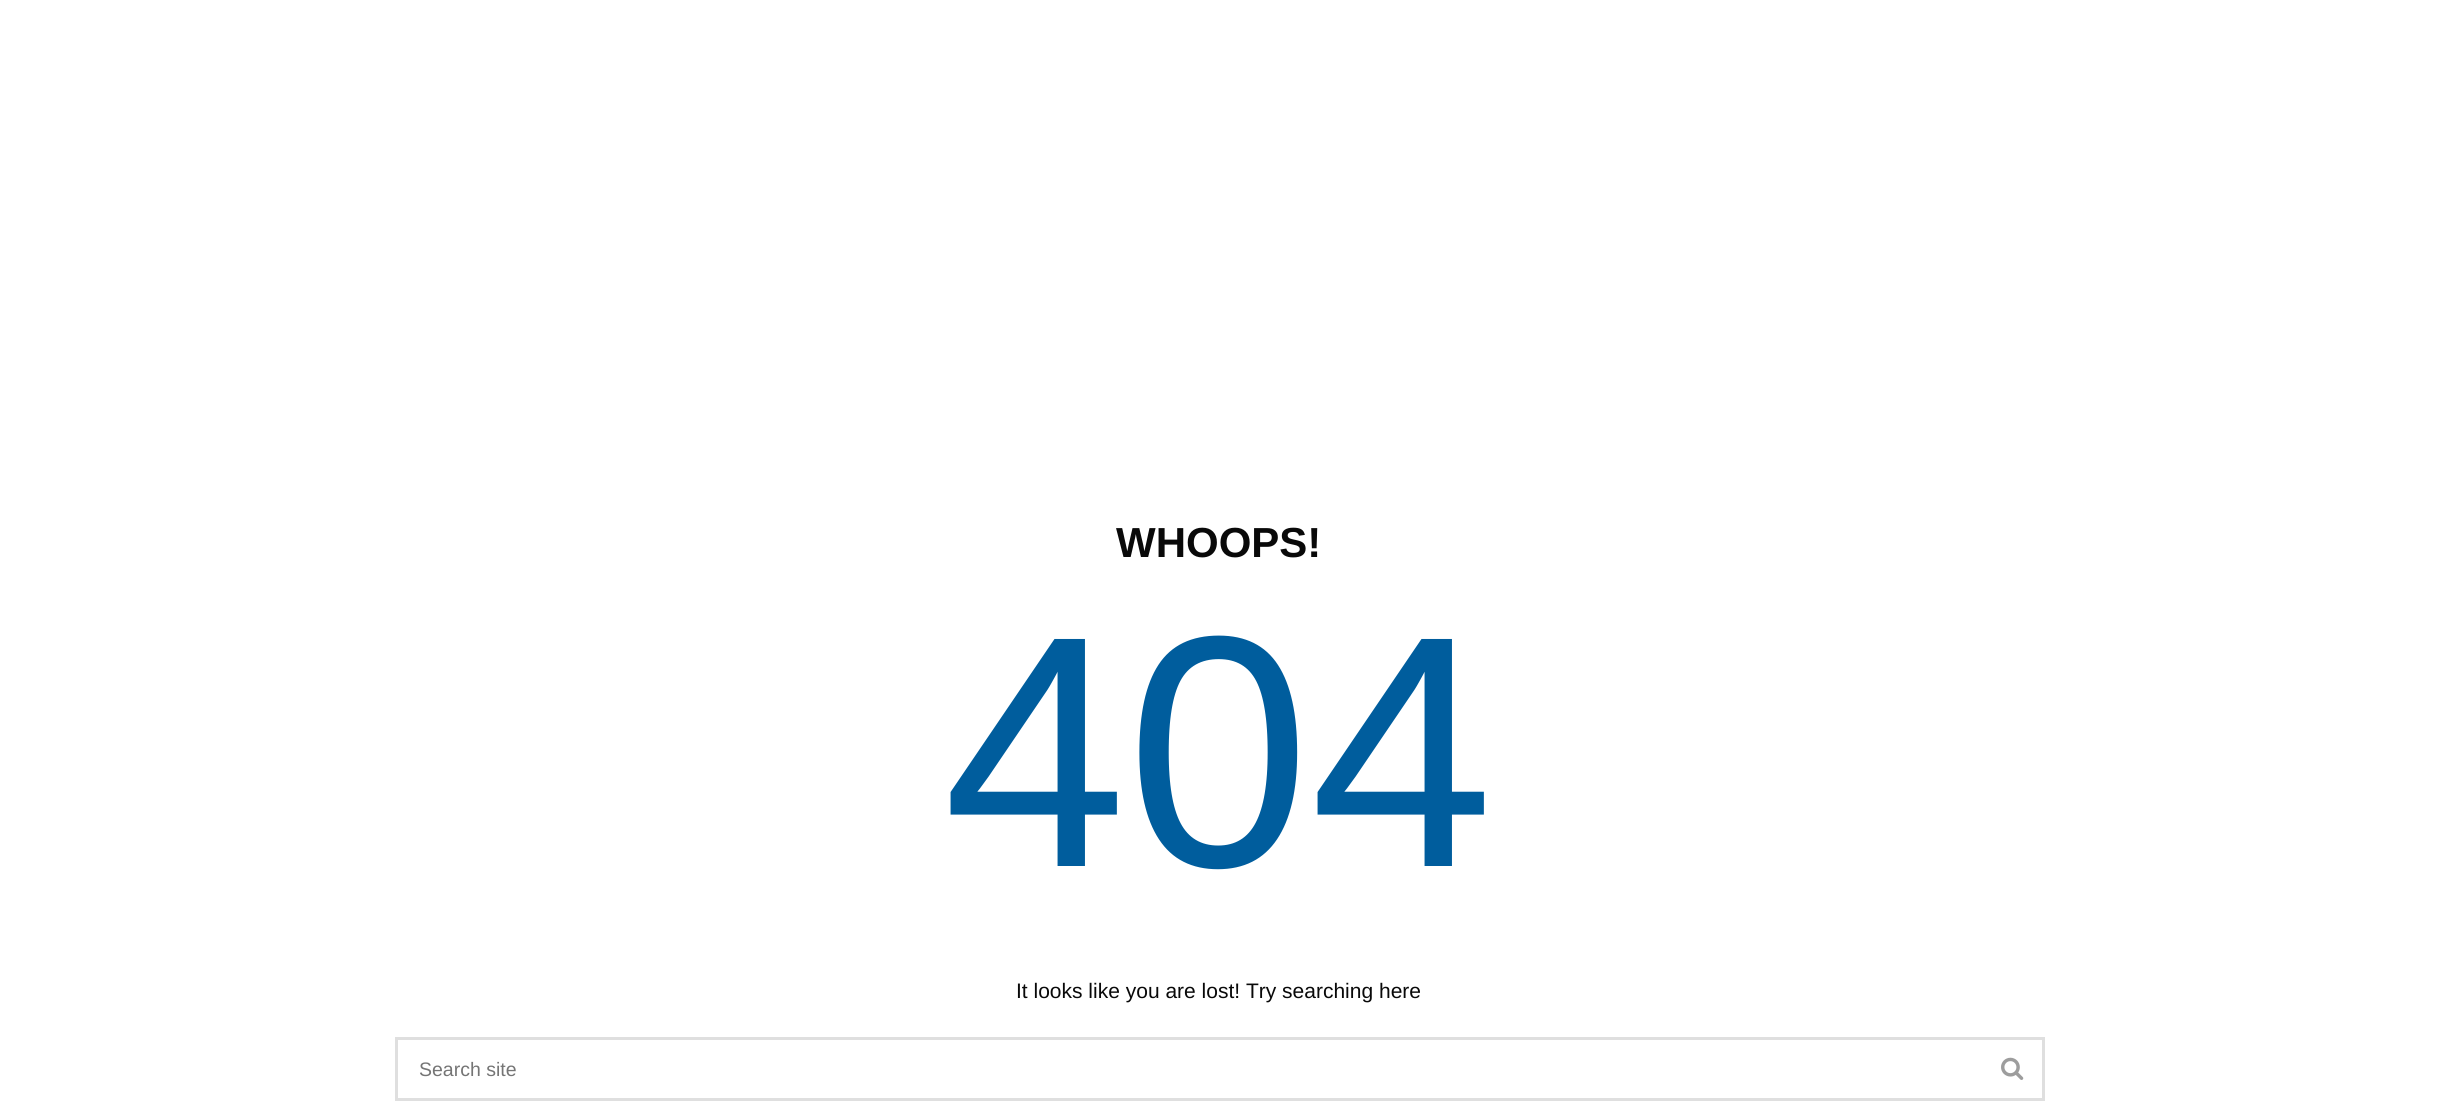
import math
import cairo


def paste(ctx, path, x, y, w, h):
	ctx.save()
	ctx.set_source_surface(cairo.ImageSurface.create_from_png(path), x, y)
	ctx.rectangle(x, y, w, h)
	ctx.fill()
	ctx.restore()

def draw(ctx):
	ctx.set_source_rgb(1, 1, 1)
	ctx.paint()
	ctx.select_font_face('Liberation Sans', cairo.FONT_SLANT_NORMAL, cairo.FONT_WEIGHT_BOLD)
	ctx.set_font_size(42)
	ctx.set_source_rgb(0.039, 0.039, 0.039)
	ctx.move_to(1116, 557)
	ctx.show_text('WHOOPS!')
	ctx.select_font_face('Liberation Sans')
	ctx.set_font_size(330)
	ctx.set_source_rgb(0, 0.365, 0.616)
	ctx.move_to(943, 866)
	ctx.show_text('404')
	ctx.set_font_size(21)
	ctx.set_source_rgb(0.039, 0.039, 0.039)
	ctx.move_to(1016, 998)
	ctx.show_text('It looks like you are lost! Try searching here')
	ctx.rectangle(396.5, 1038.5, 1647, 61)
	ctx.set_source_rgb(0.875, 0.875, 0.875)
	ctx.set_line_width(3)
	ctx.stroke()
	ctx.set_font_size(19.5)
	ctx.set_source_rgb(0.459, 0.459, 0.459)
	ctx.move_to(419, 1076)
	ctx.show_text('Search site')
	paste(ctx, 'media/1.png', 2001, 1057, 23, 23)


surface = cairo.ImageSurface(cairo.FORMAT_RGB24, 2437, 1116)
ctx = cairo.Context(surface)
options = cairo.FontOptions()
options.set_hint_metrics(cairo.HINT_METRICS_OFF)
options.set_hint_style(cairo.HINT_STYLE_NONE)
ctx.set_font_options(options)
ctx.set_miter_limit(4)
draw(ctx)
surface.write_to_png('image.png')
